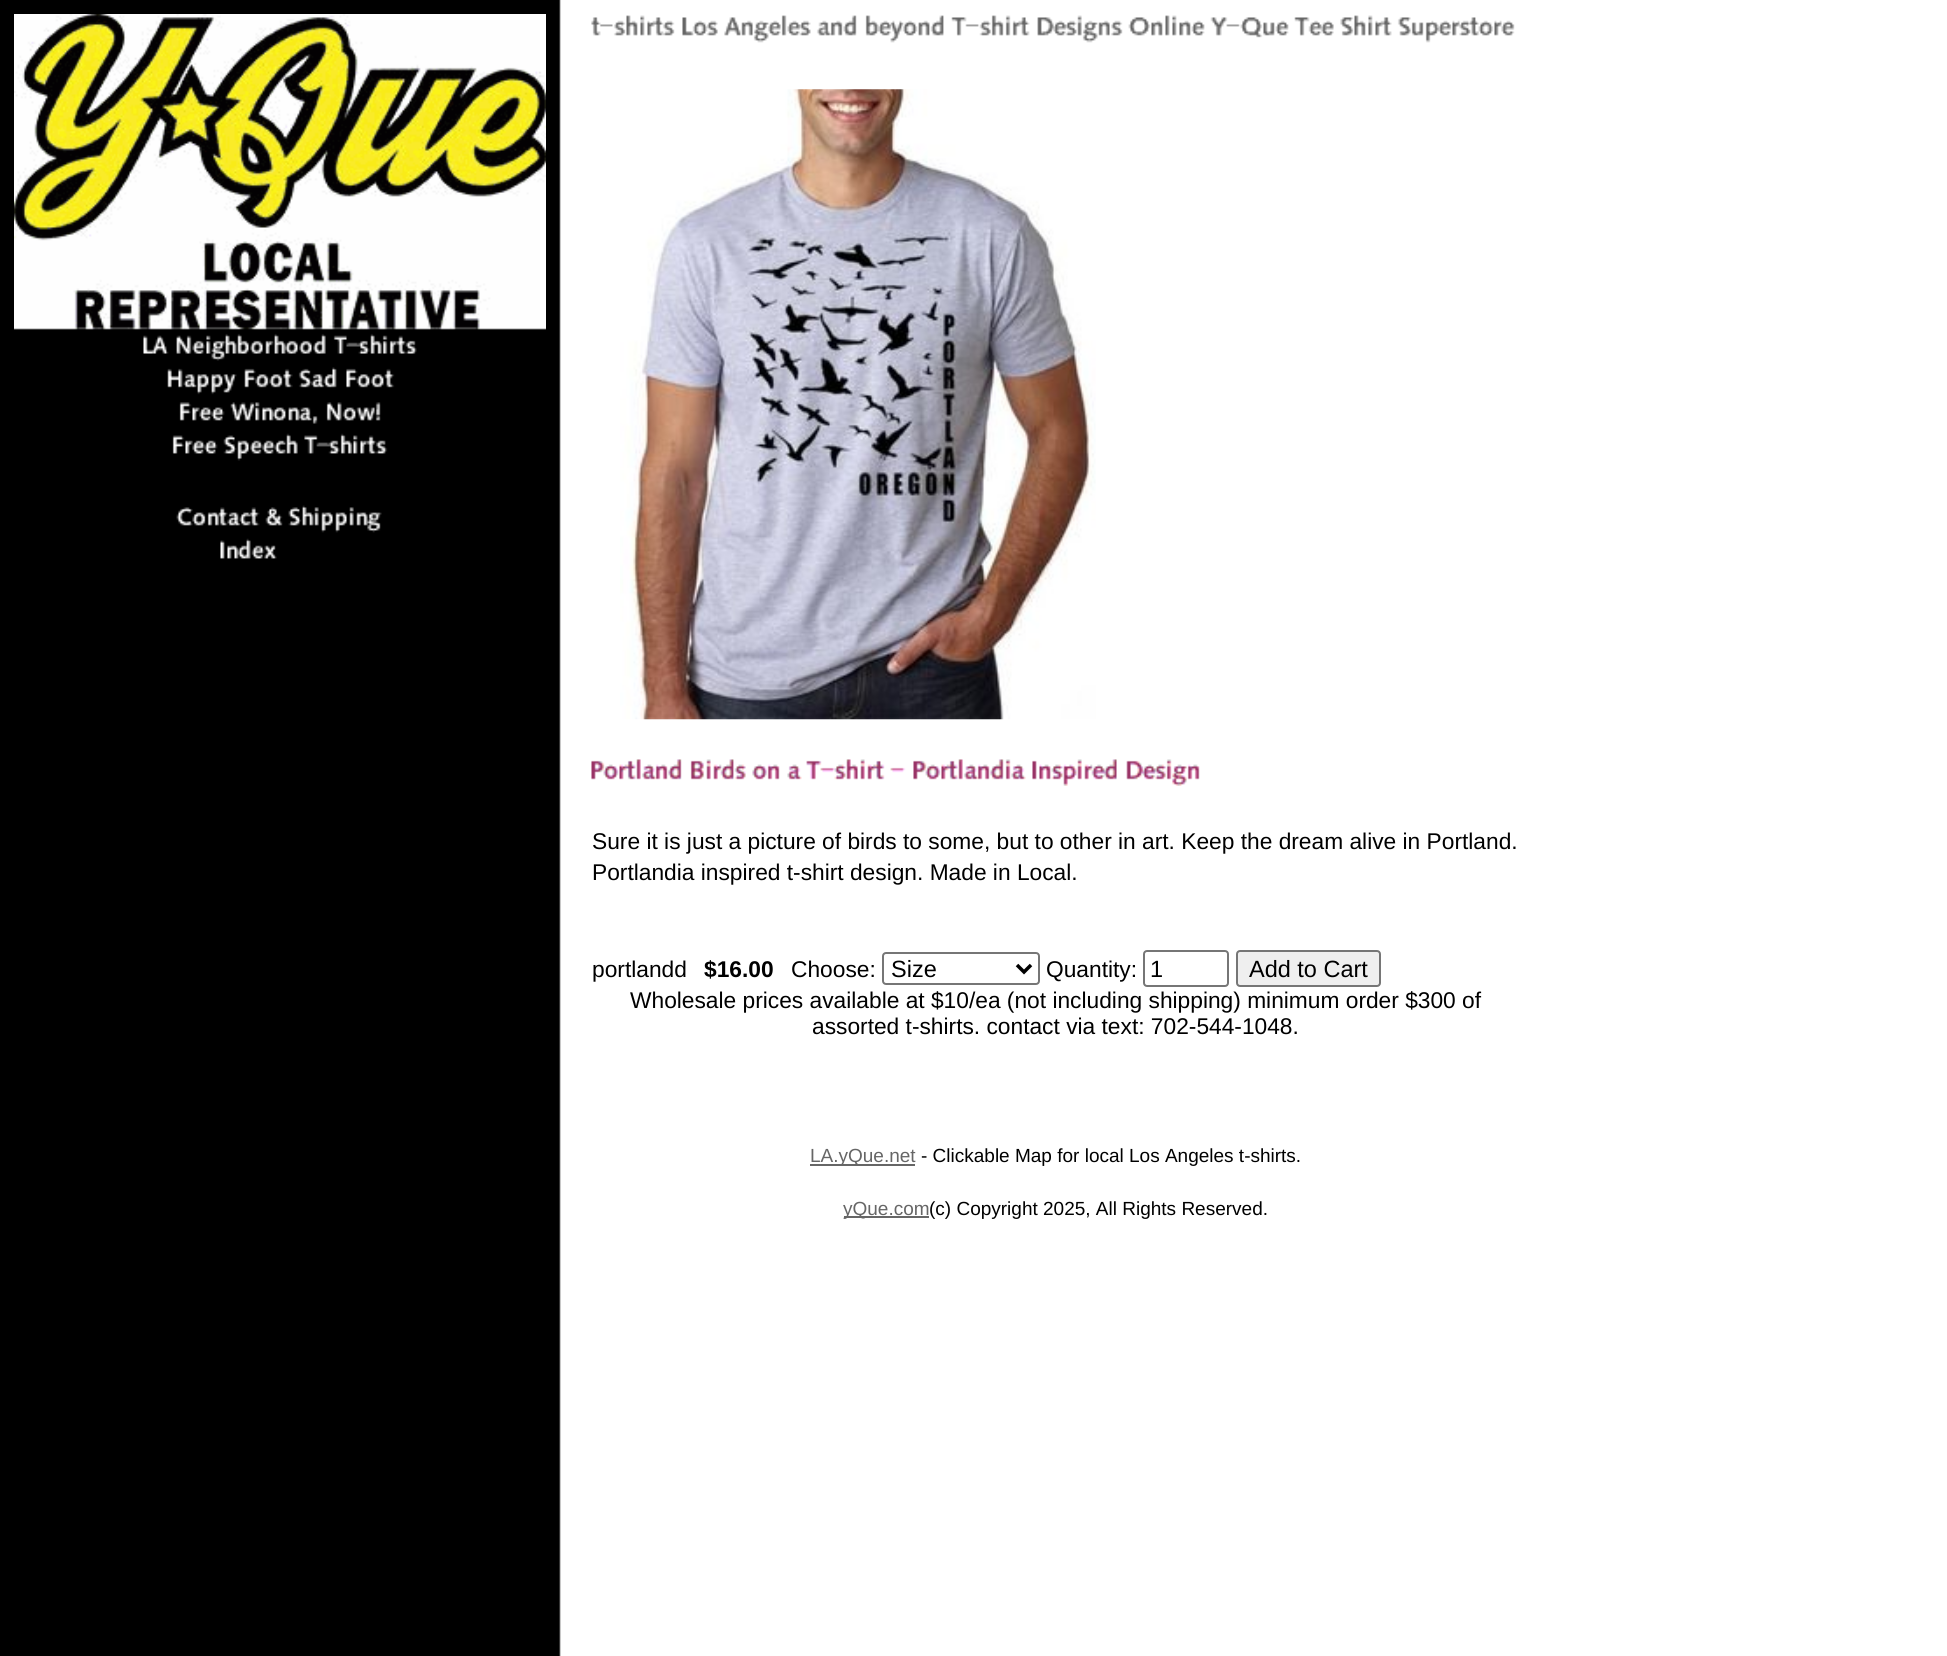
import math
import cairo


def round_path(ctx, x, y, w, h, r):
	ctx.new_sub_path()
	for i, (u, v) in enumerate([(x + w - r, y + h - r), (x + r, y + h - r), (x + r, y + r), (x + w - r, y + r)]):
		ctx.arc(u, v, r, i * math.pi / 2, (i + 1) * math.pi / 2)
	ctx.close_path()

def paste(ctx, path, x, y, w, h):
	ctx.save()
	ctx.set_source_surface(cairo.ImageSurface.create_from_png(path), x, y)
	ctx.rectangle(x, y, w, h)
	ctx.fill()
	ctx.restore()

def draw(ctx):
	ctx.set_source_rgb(1, 1, 1)
	ctx.paint()
	paste(ctx, 'media/1.png', 0, 0, 561, 1656)
	paste(ctx, 'media/2.png', 14, 14, 532, 545)
	paste(ctx, 'media/3.png', 591, 15, 924, 28)
	paste(ctx, 'media/4.png', 620, 89, 476, 631)
	paste(ctx, 'media/5.png', 591, 759, 609, 27)
	ctx.select_font_face('Liberation Sans')
	ctx.set_font_size(22.75)
	ctx.set_source_rgb(0, 0, 0)
	for x, y, s in [
		(592, 849, 'Sure it is just a picture of birds to some, but to other in art. Keep the dream alive in Portland.'),
		(592, 880, 'Portlandia inspired t-shirt design. Made in Local.'),
		(592, 977, 'portlandd'),
	]:
		ctx.move_to(x, y)
		ctx.show_text(s)
	ctx.select_font_face('Liberation Sans', cairo.FONT_SLANT_NORMAL, cairo.FONT_WEIGHT_BOLD)
	ctx.move_to(704, 977)
	ctx.show_text('$16.00')
	ctx.select_font_face('Liberation Sans')
	ctx.move_to(791, 977)
	ctx.show_text('Choose:')
	round_path(ctx, 883, 953, 156, 31, 3)
	ctx.set_source_rgb(0.463, 0.463, 0.463)
	ctx.stroke()
	ctx.new_path()
	ctx.move_to(1017, 965)
	ctx.line_to(1024, 972)
	ctx.line_to(1031, 965)
	ctx.set_source_rgb(0, 0, 0)
	ctx.set_line_width(3.5)
	ctx.stroke()
	ctx.set_font_size(23.5)
	ctx.move_to(891, 977)
	ctx.show_text('Size')
	ctx.set_font_size(22.75)
	ctx.move_to(1046, 977)
	ctx.show_text('Quantity:')
	round_path(ctx, 1144, 951, 84, 35, 3)
	ctx.set_source_rgb(0.463, 0.463, 0.463)
	ctx.set_line_width(2)
	ctx.stroke()
	ctx.set_font_size(23.5)
	ctx.set_source_rgb(0, 0, 0)
	ctx.move_to(1150, 977)
	ctx.show_text('1')
	ctx.set_source_rgb(0.937, 0.937, 0.937)
	round_path(ctx, 1237, 951, 143, 35, 3)
	ctx.fill_preserve()
	ctx.set_source_rgb(0.463, 0.463, 0.463)
	ctx.stroke()
	ctx.set_source_rgb(0, 0, 0)
	ctx.move_to(1249, 977)
	ctx.show_text('Add to Cart')
	ctx.set_font_size(22.75)
	ctx.move_to(630, 1008)
	ctx.show_text('Wholesale prices available at $10/ea (not including shipping) minimum order $300 of')
	ctx.move_to(812, 1034)
	ctx.show_text('assorted t-shirts. contact via text: 702-544-1048.')
	ctx.set_source_rgb(0.4, 0.4, 0.4)
	ctx.rectangle(810, 1164, 105, 2)
	ctx.fill()
	ctx.set_font_size(19)
	ctx.move_to(810, 1162)
	ctx.show_text('LA.yQue.net')
	ctx.set_source_rgb(0, 0, 0)
	ctx.move_to(921, 1162)
	ctx.show_text('- Clickable Map for local Los Angeles t-shirts.')
	ctx.set_source_rgb(0.4, 0.4, 0.4)
	ctx.rectangle(844, 1216, 85, 2)
	ctx.fill()
	ctx.move_to(843, 1215)
	ctx.show_text('yQue.com')
	ctx.set_source_rgb(0, 0, 0)
	ctx.move_to(929, 1215)
	ctx.show_text('(c) Copyright 2025, All Rights Reserved.')


surface = cairo.ImageSurface(cairo.FORMAT_RGB24, 1947, 1656)
ctx = cairo.Context(surface)
options = cairo.FontOptions()
options.set_hint_metrics(cairo.HINT_METRICS_OFF)
options.set_hint_style(cairo.HINT_STYLE_NONE)
ctx.set_font_options(options)
ctx.set_miter_limit(4)
draw(ctx)
surface.write_to_png('image.png')
